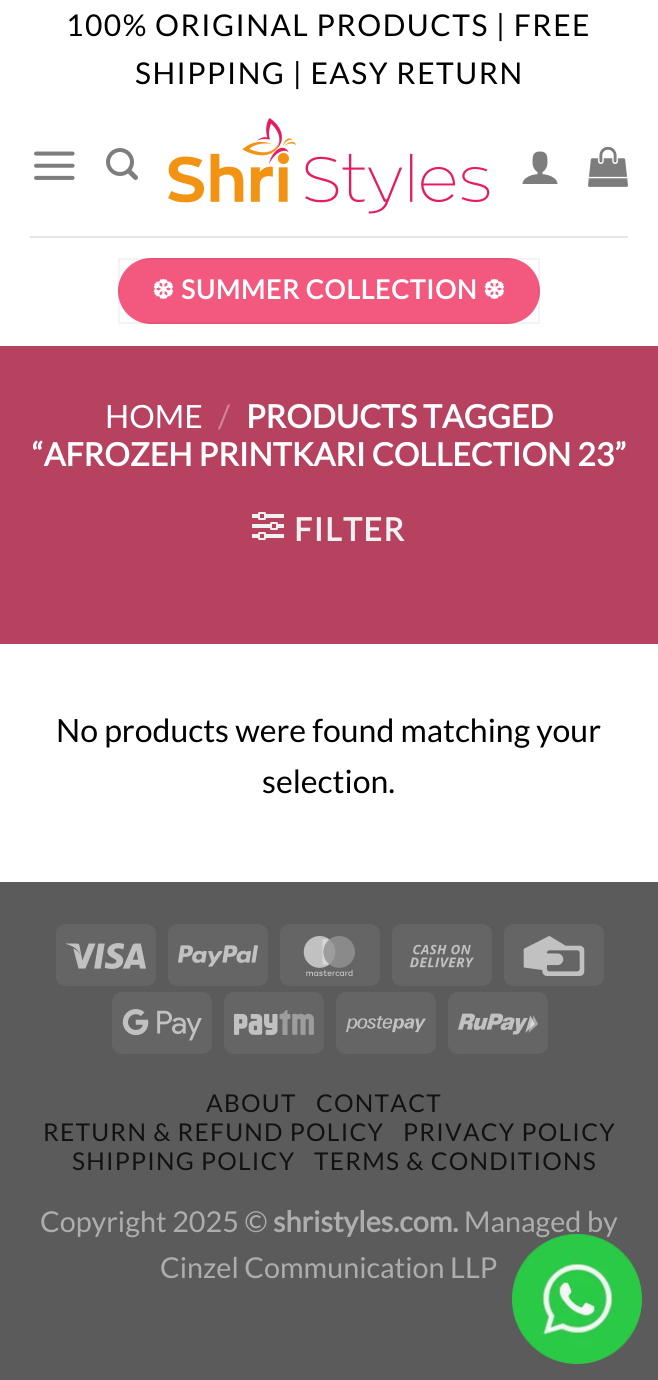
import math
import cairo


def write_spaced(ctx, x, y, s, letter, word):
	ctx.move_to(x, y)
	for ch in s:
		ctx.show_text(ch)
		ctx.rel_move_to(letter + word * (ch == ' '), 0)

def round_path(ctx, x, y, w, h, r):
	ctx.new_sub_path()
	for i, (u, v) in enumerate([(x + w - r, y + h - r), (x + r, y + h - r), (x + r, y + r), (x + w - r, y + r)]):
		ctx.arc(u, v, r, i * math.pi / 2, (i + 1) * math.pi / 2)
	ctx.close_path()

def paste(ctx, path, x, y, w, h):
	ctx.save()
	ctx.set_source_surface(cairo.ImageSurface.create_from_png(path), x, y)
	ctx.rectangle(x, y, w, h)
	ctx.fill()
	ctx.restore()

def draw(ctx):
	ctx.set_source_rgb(0.357, 0.357, 0.357)
	ctx.paint()
	ctx.set_source_rgb(1, 1, 1)
	ctx.rectangle(0, 0, 658, 882)
	ctx.fill()
	ctx.select_font_face('Lato')
	ctx.set_font_size(30)
	ctx.set_source_rgb(0, 0, 0)
	write_spaced(ctx, 66, 36, '100% ORIGINAL PRODUCTS | FREE', 1.5, 0)
	write_spaced(ctx, 135, 84, 'SHIPPING | EASY RETURN', 1.5, 0)
	paste(ctx, 'media/1.png', 34, 151, 41, 29)
	paste(ctx, 'media/2.png', 106, 148, 32, 32)
	paste(ctx, 'media/3.png', 168, 118, 322, 96)
	paste(ctx, 'media/4.png', 522, 151, 36, 33)
	paste(ctx, 'media/5.png', 588, 146, 40, 41)
	ctx.set_source_rgb(0.902, 0.902, 0.902)
	ctx.rectangle(30, 236, 598, 2)
	ctx.fill()
	ctx.set_source_rgb(0.953, 0.345, 0.494)
	round_path(ctx, 118, 258, 422, 66, 33)
	ctx.fill()
	ctx.rectangle(119, 259, 420, 64)
	ctx.set_source_rgba(0, 0, 0, 0.05)
	ctx.stroke()
	ctx.select_font_face('DejaVu Sans', cairo.FONT_SLANT_NORMAL, cairo.FONT_WEIGHT_BOLD)
	ctx.set_font_size(26.4)
	ctx.set_source_rgb(1, 1, 1)
	write_spaced(ctx, 152, 299, '❆', 0.75, 0)
	ctx.select_font_face('Lato', cairo.FONT_SLANT_NORMAL, cairo.FONT_WEIGHT_BOLD)
	write_spaced(ctx, 181, 299, 'SUMMER COLLECTION', 0.75, 0)
	ctx.select_font_face('DejaVu Sans', cairo.FONT_SLANT_NORMAL, cairo.FONT_WEIGHT_BOLD)
	write_spaced(ctx, 483, 299, '❆', 0.75, 0)
	ctx.set_source_rgb(0.718, 0.259, 0.373)
	ctx.rectangle(0, 346, 658, 298)
	ctx.fill()
	ctx.select_font_face('Lato')
	ctx.set_font_size(32)
	ctx.set_source_rgb(1, 1, 1)
	ctx.move_to(105, 428)
	ctx.show_text('HOME')
	ctx.set_source_rgb(0.816, 0.518, 0.592)
	ctx.move_to(218, 428)
	ctx.show_text('/')
	ctx.select_font_face('Lato', cairo.FONT_SLANT_NORMAL, cairo.FONT_WEIGHT_BOLD)
	ctx.set_source_rgb(1, 1, 1)
	ctx.move_to(246, 428)
	ctx.show_text('PRODUCTS TAGGED')
	ctx.move_to(32, 466)
	ctx.show_text('“AFROZEH PRINTKARI COLLECTION 23”')
	paste(ctx, 'media/6.png', 252, 512, 32, 28)
	ctx.set_source_rgb(0.945, 0.945, 0.945)
	write_spaced(ctx, 294, 541, 'FILTER', 1.5, 0)
	ctx.select_font_face('Lato')
	ctx.set_source_rgb(0, 0, 0)
	ctx.move_to(56, 742)
	ctx.show_text('No products were found matching your')
	ctx.move_to(262, 793)
	ctx.show_text('selection.')
	ctx.set_source_rgb(0.396, 0.396, 0.396)
	round_path(ctx, 56, 924, 100, 62, 10)
	ctx.fill()
	paste(ctx, 'media/7.png', 66, 943, 80, 26)
	round_path(ctx, 168, 924, 100, 62, 10)
	ctx.fill()
	paste(ctx, 'media/8.png', 178, 945, 80, 22)
	round_path(ctx, 280, 924, 100, 62, 10)
	ctx.fill()
	paste(ctx, 'media/9.png', 303, 936, 52, 40)
	round_path(ctx, 392, 924, 100, 62, 10)
	ctx.fill()
	paste(ctx, 'media/10.png', 410, 944, 64, 24)
	round_path(ctx, 504, 924, 100, 62, 10)
	ctx.fill()
	paste(ctx, 'media/11.png', 523, 936, 62, 40)
	round_path(ctx, 112, 992, 100, 62, 10)
	ctx.fill()
	paste(ctx, 'media/12.png', 122, 1009, 80, 32)
	round_path(ctx, 224, 992, 100, 62, 10)
	ctx.fill()
	paste(ctx, 'media/13.png', 234, 1010, 80, 25)
	round_path(ctx, 336, 992, 100, 62, 10)
	ctx.fill()
	paste(ctx, 'media/14.png', 346, 1016, 80, 17)
	round_path(ctx, 448, 992, 100, 62, 10)
	ctx.fill()
	paste(ctx, 'media/15.png', 458, 1013, 80, 22)
	ctx.set_font_size(24.5)
	ctx.set_source_rgb(0.071, 0.071, 0.071)
	for x, y, s in [
		(206, 1112, 'ABOUT'),
		(316, 1112, 'CONTACT'),
		(43, 1141, 'RETURN & REFUND POLICY'),
		(403, 1141, 'PRIVACY POLICY'),
		(72, 1170, 'SHIPPING POLICY'),
		(314, 1170, 'TERMS & CONDITIONS'),
	]:
		write_spaced(ctx, x, y, s, 1.25, 0)
	ctx.set_font_size(28.75)
	ctx.set_source_rgb(0.678, 0.678, 0.678)
	ctx.move_to(40, 1232)
	ctx.show_text('Copyright 2025 ©')
	ctx.select_font_face('Lato', cairo.FONT_SLANT_NORMAL, cairo.FONT_WEIGHT_BOLD)
	ctx.move_to(273, 1232)
	ctx.show_text('shristyles.com.')
	ctx.select_font_face('Lato')
	ctx.move_to(464, 1232)
	ctx.show_text('Managed by')
	ctx.move_to(160, 1278)
	ctx.show_text('Cinzel Communication LLP')
	paste(ctx, 'media/16.png', 512, 1234, 130, 130)


surface = cairo.ImageSurface(cairo.FORMAT_RGB24, 658, 1380)
ctx = cairo.Context(surface)
options = cairo.FontOptions()
options.set_hint_metrics(cairo.HINT_METRICS_OFF)
options.set_hint_style(cairo.HINT_STYLE_NONE)
ctx.set_font_options(options)
ctx.set_miter_limit(4)
draw(ctx)
surface.write_to_png('image.png')
